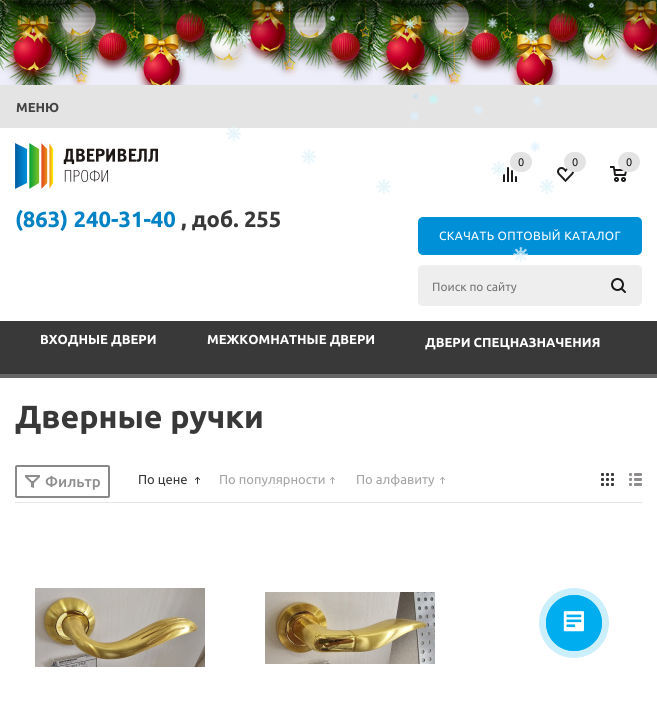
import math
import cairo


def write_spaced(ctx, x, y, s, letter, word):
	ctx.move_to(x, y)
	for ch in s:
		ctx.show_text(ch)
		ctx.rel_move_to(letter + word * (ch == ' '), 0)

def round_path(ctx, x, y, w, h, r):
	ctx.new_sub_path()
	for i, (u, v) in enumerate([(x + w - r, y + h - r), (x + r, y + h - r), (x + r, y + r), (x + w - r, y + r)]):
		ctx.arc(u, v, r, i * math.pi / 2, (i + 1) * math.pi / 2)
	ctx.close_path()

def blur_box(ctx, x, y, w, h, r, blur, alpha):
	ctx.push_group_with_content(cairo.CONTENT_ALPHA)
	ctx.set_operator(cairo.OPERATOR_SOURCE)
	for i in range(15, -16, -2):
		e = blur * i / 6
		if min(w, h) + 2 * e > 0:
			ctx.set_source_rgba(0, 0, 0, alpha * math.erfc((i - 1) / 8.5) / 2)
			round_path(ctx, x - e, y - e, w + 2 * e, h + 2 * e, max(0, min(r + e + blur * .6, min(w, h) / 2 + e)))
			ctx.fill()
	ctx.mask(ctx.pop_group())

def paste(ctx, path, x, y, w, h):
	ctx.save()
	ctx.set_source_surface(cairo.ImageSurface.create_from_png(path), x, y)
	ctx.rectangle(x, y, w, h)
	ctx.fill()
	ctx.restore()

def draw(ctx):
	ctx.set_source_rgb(1, 1, 1)
	ctx.paint()
	ctx.set_source_rgb(0.929, 0.933, 0.973)
	ctx.rectangle(0, 0, 657, 85)
	ctx.fill()
	paste(ctx, 'media/13.png', 0, 0, 657, 85)
	paste(ctx, 'media/18.png', 136, 0, 51, 85)
	paste(ctx, 'media/19.png', 170, 0, 41, 54)
	paste(ctx, 'media/25.png', 204, 6, 45, 66)
	paste(ctx, 'media/22.png', 243, 0, 49, 64)
	paste(ctx, 'media/15.png', 6, 0, 52, 82)
	paste(ctx, 'media/14.png', 0, 0, 25, 71)
	paste(ctx, 'media/17.png', 54, 0, 49, 47)
	paste(ctx, 'media/16.png', 25, 0, 61, 27)
	paste(ctx, 'media/20.png', 177, 0, 28, 31)
	paste(ctx, 'media/21.png', 205, 0, 50, 50)
	paste(ctx, 'media/23.png', 287, 0, 46, 49)
	paste(ctx, 'media/24.png', 92, 9, 41, 64)
	paste(ctx, 'media/28.png', 325, 10, 41, 63)
	paste(ctx, 'media/26.png', 289, 0, 78, 28)
	paste(ctx, 'media/27.png', 367, 0, 6, 69)
	paste(ctx, 'media/15.png', 379, 0, 52, 82)
	paste(ctx, 'media/14.png', 373, 0, 25, 71)
	paste(ctx, 'media/17.png', 427, 0, 49, 47)
	paste(ctx, 'media/16.png', 398, 0, 61, 27)
	paste(ctx, 'media/18.png', 509, 0, 51, 85)
	paste(ctx, 'media/19.png', 543, 0, 41, 54)
	paste(ctx, 'media/25.png', 577, 6, 45, 66)
	paste(ctx, 'media/20.png', 550, 0, 28, 31)
	paste(ctx, 'media/29.png', 616, 0, 41, 64)
	paste(ctx, 'media/21.png', 578, 0, 50, 50)
	paste(ctx, 'media/24.png', 465, 9, 41, 64)
	ctx.set_source_rgb(0, 0, 0)
	blur_box(ctx, 0, -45, 657, 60, 0, 15, 0.75)
	paste(ctx, 'media/1.png', 274, 1, 11, 11)
	paste(ctx, 'media/2.png', 588, 2, 7, 6)
	paste(ctx, 'media/3.png', 329, 15, 7, 6)
	paste(ctx, 'media/4.png', 405, 19, 11, 10)
	paste(ctx, 'media/5.png', 487, 17, 11, 11)
	paste(ctx, 'media/6.png', 236, 30, 15, 15)
	paste(ctx, 'media/7.png', 523, 29, 15, 15)
	paste(ctx, 'media/8.png', 174, 47, 15, 15)
	paste(ctx, 'media/9.png', 425, 72, 10, 11)
	ctx.set_source_rgb(0.894, 0.894, 0.894)
	ctx.rectangle(0, 85, 657, 43)
	ctx.fill()
	paste(ctx, 'media/10.png', 412, 93, 6, 6)
	paste(ctx, 'media/11.png', 428, 94, 11, 10)
	paste(ctx, 'media/12.png', 532, 95, 10, 11)
	ctx.select_font_face('Ubuntu', cairo.FONT_SLANT_NORMAL, cairo.FONT_WEIGHT_BOLD)
	ctx.set_font_size(13)
	ctx.set_source_rgb(0.267, 0.267, 0.267)
	ctx.move_to(16, 112)
	ctx.show_text('МЕНЮ')
	paste(ctx, 'media/30.png', 15, 143, 143, 46)
	paste(ctx, 'media/31.png', 503, 167, 14, 15)
	ctx.set_source_rgb(0.89, 0.89, 0.89)
	round_path(ctx, 510, 152, 22, 20, 10)
	ctx.fill()
	ctx.select_font_face('Ubuntu')
	ctx.set_font_size(11)
	ctx.set_source_rgb(0.114, 0.102, 0.102)
	ctx.move_to(518, 166)
	ctx.show_text('0')
	paste(ctx, 'media/32.png', 557, 167, 17, 15)
	ctx.set_source_rgb(0.89, 0.89, 0.89)
	round_path(ctx, 564, 152, 22, 20, 10)
	ctx.fill()
	ctx.set_source_rgb(0.129, 0.129, 0.129)
	ctx.move_to(572, 166)
	ctx.show_text('0')
	paste(ctx, 'media/33.png', 610, 166, 17, 16)
	ctx.set_source_rgb(0.89, 0.89, 0.89)
	round_path(ctx, 618, 152, 22, 20, 10)
	ctx.fill()
	ctx.set_source_rgb(0.114, 0.102, 0.102)
	ctx.move_to(626, 166)
	ctx.show_text('0')
	ctx.select_font_face('Ubuntu', cairo.FONT_SLANT_NORMAL, cairo.FONT_WEIGHT_BOLD)
	ctx.set_font_size(22)
	ctx.set_source_rgb(0, 0.51, 0.769)
	ctx.move_to(15, 227)
	ctx.show_text('(863) 240-31-40')
	ctx.set_source_rgb(0.22, 0.22, 0.22)
	ctx.move_to(181, 227)
	ctx.show_text(', доб. 255')
	ctx.set_source_rgb(0, 0.565, 0.847)
	round_path(ctx, 418, 217, 224, 38, 5)
	ctx.fill()
	ctx.select_font_face('Ubuntu')
	ctx.set_font_size(12)
	ctx.set_source_rgb(1, 1, 1)
	write_spaced(ctx, 439, 240, 'CКАЧАТЬ ОПТОВЫЙ КАТАЛОГ', 0.4, 0)
	ctx.set_source_rgb(0.933, 0.933, 0.933)
	round_path(ctx, 418, 265, 224, 41, 5)
	ctx.fill()
	ctx.set_source_rgb(0.459, 0.459, 0.459)
	ctx.move_to(432, 291)
	ctx.show_text('Поиск по сайту')
	paste(ctx, 'media/34.png', 611, 278, 15, 15)
	ctx.set_source_rgb(0.224, 0.224, 0.224)
	ctx.rectangle(0, 321, 657, 53)
	ctx.fill()
	ctx.set_source_rgb(0.4, 0.4, 0.4)
	ctx.rectangle(0, 374, 657, 4)
	ctx.fill()
	ctx.select_font_face('Ubuntu', cairo.FONT_SLANT_NORMAL, cairo.FONT_WEIGHT_BOLD)
	ctx.set_font_size(13)
	ctx.set_source_rgb(1, 1, 1)
	for x, y, s in [
		(40, 344, 'ВХОДНЫЕ ДВЕРИ'),
		(207, 344, 'МЕЖКОМНАТНЫЕ ДВЕРИ'),
		(425, 347, 'ДВЕРИ СПЕЦНАЗНАЧЕНИЯ'),
	]:
		ctx.move_to(x, y)
		ctx.show_text(s)
	ctx.set_font_size(32)
	ctx.set_source_rgb(0.22, 0.22, 0.22)
	ctx.move_to(15, 428)
	ctx.show_text('Дверные ручки')
	round_path(ctx, 16, 466, 93, 31, 1)
	ctx.set_source_rgb(0.533, 0.533, 0.533)
	ctx.stroke()
	paste(ctx, 'media/35.png', 25, 475, 15, 13)
	ctx.select_font_face('Ubuntu Medium')
	ctx.set_font_size(15)
	ctx.set_source_rgb(0.557, 0.549, 0.549)
	ctx.move_to(45, 487)
	ctx.show_text('Фильтр')
	ctx.set_source_rgb(0.898, 0.898, 0.898)
	ctx.rectangle(15, 502, 627, 1)
	ctx.fill()
	ctx.select_font_face('Ubuntu')
	ctx.set_font_size(13)
	ctx.set_source_rgb(0.22, 0.22, 0.22)
	ctx.move_to(138, 484)
	ctx.show_text('По цене')
	paste(ctx, 'media/36.png', 195, 477, 5, 7)
	ctx.set_source_rgb(0.647, 0.639, 0.639)
	ctx.move_to(219, 484)
	ctx.show_text('По популярности')
	paste(ctx, 'media/37.png', 330, 477, 5, 7)
	ctx.move_to(356, 484)
	ctx.show_text('По алфавиту')
	paste(ctx, 'media/37.png', 440, 477, 5, 7)
	paste(ctx, 'media/38.png', 601, 473, 13, 13)
	paste(ctx, 'media/39.png', 629, 473, 13, 13)
	paste(ctx, 'media/40.png', 35, 588, 170, 79)
	paste(ctx, 'media/41.png', 265, 592, 170, 72)
	ctx.set_source_rgb(0.8, 0.937, 0.988)
	ctx.arc(574, 623, 35, 0, 2 * math.pi)
	ctx.fill()
	ctx.arc(574, 623, 27.6, 0, 2 * math.pi)
	ctx.set_source_rgb(0, 0.682, 0.937)
	ctx.set_line_width(0.8)
	ctx.stroke()
	ctx.arc(574, 623, 28, 0, 2 * math.pi)
	ctx.fill()
	paste(ctx, 'media/42.png', 563, 611, 21, 21)
	paste(ctx, 'media/12.png', 473, 104, 10, 11)
	paste(ctx, 'media/43.png', 409, 111, 11, 10)
	paste(ctx, 'media/44.png', 226, 126, 15, 15)
	paste(ctx, 'media/45.png', 530, 141, 10, 11)
	paste(ctx, 'media/46.png', 301, 149, 15, 15)
	paste(ctx, 'media/47.png', 491, 161, 15, 15)
	paste(ctx, 'media/46.png', 376, 179, 15, 15)
	paste(ctx, 'media/46.png', 539, 179, 15, 15)
	paste(ctx, 'media/48.png', 513, 247, 15, 15)


surface = cairo.ImageSurface(cairo.FORMAT_RGB24, 657, 706)
ctx = cairo.Context(surface)
options = cairo.FontOptions()
options.set_hint_metrics(cairo.HINT_METRICS_OFF)
options.set_hint_style(cairo.HINT_STYLE_NONE)
ctx.set_font_options(options)
ctx.set_miter_limit(4)
draw(ctx)
surface.write_to_png('image.png')
